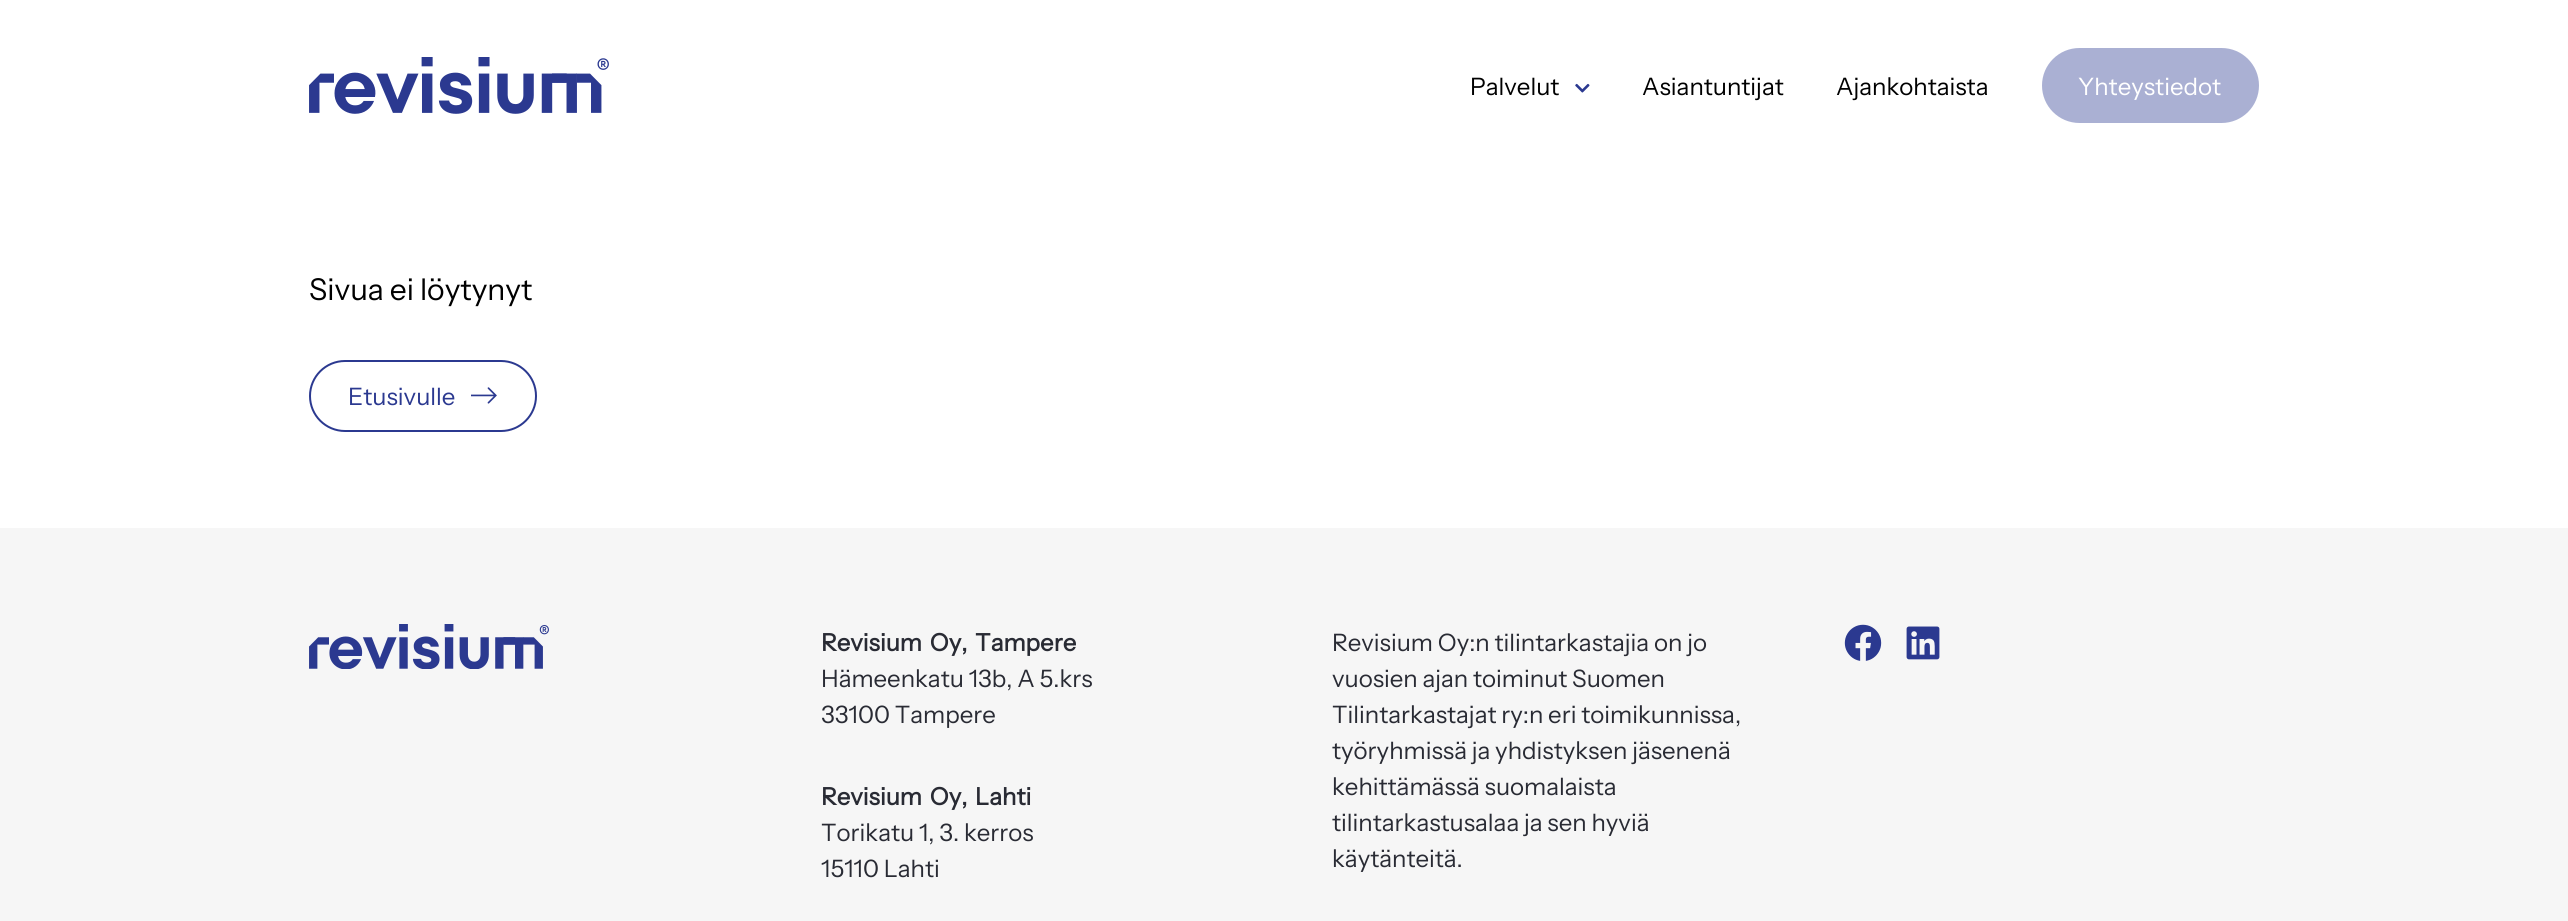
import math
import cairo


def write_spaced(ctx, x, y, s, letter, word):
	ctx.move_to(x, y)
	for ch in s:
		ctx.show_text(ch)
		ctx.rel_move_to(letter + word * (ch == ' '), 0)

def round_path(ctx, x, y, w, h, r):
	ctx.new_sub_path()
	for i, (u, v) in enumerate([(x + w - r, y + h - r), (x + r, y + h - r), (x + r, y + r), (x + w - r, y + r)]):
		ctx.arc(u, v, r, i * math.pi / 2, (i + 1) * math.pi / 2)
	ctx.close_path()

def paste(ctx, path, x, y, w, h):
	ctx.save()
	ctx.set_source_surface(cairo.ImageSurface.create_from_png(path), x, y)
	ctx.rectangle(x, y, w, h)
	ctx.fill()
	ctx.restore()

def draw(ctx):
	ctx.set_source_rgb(1, 1, 1)
	ctx.paint()
	paste(ctx, 'media/1.png', 309, 57, 300, 57)
	ctx.select_font_face('Instrument Sans')
	ctx.set_font_size(24)
	ctx.set_source_rgb(0, 0, 0)
	ctx.move_to(1470, 95)
	ctx.show_text('Palvelut')
	paste(ctx, 'media/2.png', 1575, 83, 15, 10)
	ctx.move_to(1642, 95)
	ctx.show_text('Asiantuntijat')
	ctx.move_to(1836, 95)
	ctx.show_text('Ajankohtaista')
	ctx.set_source_rgb(0.667, 0.69, 0.827)
	round_path(ctx, 2042, 48, 217, 75, 37.5)
	ctx.fill()
	ctx.set_source_rgb(1, 1, 1)
	ctx.move_to(2078, 95)
	ctx.show_text('Yhteystiedot')
	ctx.set_font_size(30)
	ctx.set_source_rgb(0, 0, 0)
	ctx.move_to(309, 300)
	ctx.show_text('Sivua ei löytynyt')
	round_path(ctx, 310, 361, 226, 70, 35)
	ctx.set_source_rgb(0.169, 0.224, 0.565)
	ctx.stroke()
	ctx.set_font_size(24)
	ctx.move_to(348, 405)
	ctx.show_text('Etusivulle')
	paste(ctx, 'media/3.png', 471, 387, 26, 17)
	ctx.set_source_rgb(0.961, 0.961, 0.961)
	ctx.rectangle(0, 528, 2568, 393)
	ctx.fill()
	paste(ctx, 'media/4.png', 309, 624, 240, 45)
	ctx.select_font_face('Instrument Sans', cairo.FONT_SLANT_NORMAL, cairo.FONT_WEIGHT_BOLD)
	ctx.set_source_rgb(0.161, 0.169, 0.204)
	write_spaced(ctx, 821, 651, 'Revisium Oy, Tampere', 0, 3)
	ctx.select_font_face('Instrument Sans')
	ctx.move_to(821, 687)
	ctx.show_text('Hämeenkatu 13b, A 5.krs')
	ctx.move_to(821, 723)
	ctx.show_text('33100 Tampere')
	ctx.select_font_face('Instrument Sans', cairo.FONT_SLANT_NORMAL, cairo.FONT_WEIGHT_BOLD)
	write_spaced(ctx, 821, 805, 'Revisium Oy, Lahti', 0, 3)
	ctx.select_font_face('Instrument Sans')
	for x, y, s in [
		(821, 841, 'Torikatu 1, 3. kerros'),
		(821, 877, '15110 Lahti'),
		(1332, 651, 'Revisium Oy:n tilintarkastajia on jo'),
		(1332, 687, 'vuosien ajan toiminut Suomen'),
		(1332, 723, 'Tilintarkastajat ry:n eri toimikunnissa,'),
		(1332, 759, 'työryhmissä ja yhdistyksen jäsenenä'),
		(1332, 795, 'kehittämässä suomalaista'),
		(1332, 831, 'tilintarkastusalaa ja sen hyviä'),
		(1332, 867, 'käytänteitä.'),
	]:
		ctx.move_to(x, y)
		ctx.show_text(s)
	paste(ctx, 'media/5.png', 1844, 624, 38, 37)
	paste(ctx, 'media/6.png', 1906, 626, 34, 34)


surface = cairo.ImageSurface(cairo.FORMAT_RGB24, 2568, 921)
ctx = cairo.Context(surface)
options = cairo.FontOptions()
options.set_hint_metrics(cairo.HINT_METRICS_OFF)
options.set_hint_style(cairo.HINT_STYLE_NONE)
ctx.set_font_options(options)
ctx.set_miter_limit(4)
draw(ctx)
surface.write_to_png('image.png')
